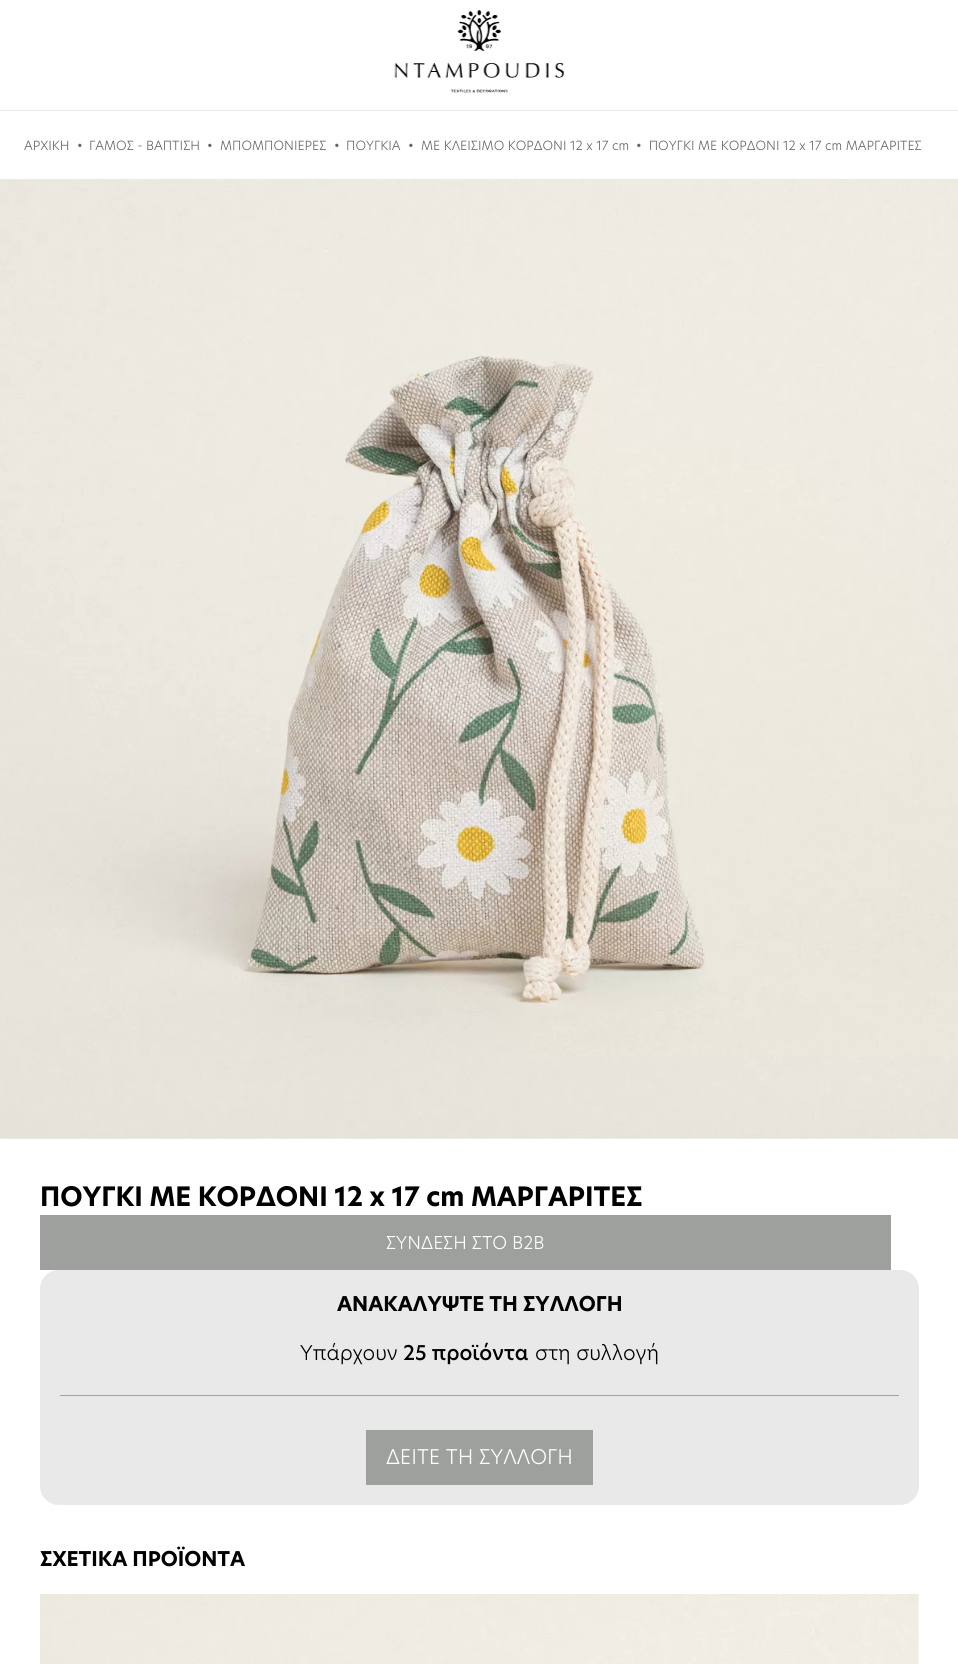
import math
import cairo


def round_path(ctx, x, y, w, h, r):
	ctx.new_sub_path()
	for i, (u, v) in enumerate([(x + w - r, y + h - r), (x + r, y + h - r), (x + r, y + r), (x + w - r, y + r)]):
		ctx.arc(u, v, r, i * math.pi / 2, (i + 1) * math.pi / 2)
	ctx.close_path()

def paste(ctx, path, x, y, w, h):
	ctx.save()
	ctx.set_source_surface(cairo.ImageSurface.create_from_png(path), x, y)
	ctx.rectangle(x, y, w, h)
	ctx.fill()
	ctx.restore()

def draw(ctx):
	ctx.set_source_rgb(1, 1, 1)
	ctx.paint()
	paste(ctx, 'media/1.png', 394, 10, 170, 83)
	ctx.set_source_rgb(0.914, 0.914, 0.914)
	ctx.rectangle(0, 110, 958, 1)
	ctx.fill()
	ctx.rectangle(0, 179, 958, 1)
	ctx.fill()
	ctx.select_font_face('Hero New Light')
	ctx.set_font_size(12.5)
	ctx.set_source_rgb(0.4, 0.4, 0.4)
	for x, y, s in [
		(24, 150, 'ΑΡΧΙΚΗ'),
		(77, 150, '•'),
		(89, 150, 'ΓΑΜΟΣ - ΒΑΠΤΙΣΗ'),
		(207, 150, '•'),
		(220, 150, 'ΜΠΟΜΠΟΝΙΕΡΕΣ'),
		(334, 150, '•'),
		(346, 150, 'ΠΟΥΓΚΙΑ'),
		(408, 150, '•'),
		(421, 150, 'ΜΕ ΚΛΕΙΣΙΜΟ ΚΟΡΔΟΝΙ 12 x 17 cm'),
		(636, 150, '•  ΠΟΥΓΚΙ ΜΕ ΚΟΡΔΟΝΙ 12 x 17 cm ΜΑΡΓΑΡΙΤΕΣ'),
	]:
		ctx.move_to(x, y)
		ctx.show_text(s)
	paste(ctx, 'media/2.png', 0, 180, 958, 959)
	ctx.select_font_face('Hero New', cairo.FONT_SLANT_NORMAL, cairo.FONT_WEIGHT_BOLD)
	ctx.set_font_size(26.25)
	ctx.set_source_rgb(0, 0, 0)
	ctx.move_to(40, 1206)
	ctx.show_text('ΠΟΥΓΚΙ ΜΕ ΚΟΡΔΟΝΙ 12 x 17 cm ΜΑΡΓΑΡΙΤΕΣ')
	ctx.set_source_rgb(0.62, 0.627, 0.616)
	ctx.rectangle(40, 1215, 851, 55)
	ctx.fill()
	ctx.select_font_face('Hero New Light')
	ctx.set_font_size(17.5)
	ctx.set_source_rgb(1, 1, 1)
	ctx.move_to(386, 1249)
	ctx.show_text('ΣΥΝΔΕΣΗ ΣΤΟ B2B')
	ctx.set_source_rgb(0.914, 0.914, 0.914)
	round_path(ctx, 40, 1270, 879, 235, 19)
	ctx.fill()
	ctx.select_font_face('Hero New', cairo.FONT_SLANT_NORMAL, cairo.FONT_WEIGHT_BOLD)
	ctx.set_font_size(20)
	ctx.set_source_rgb(0, 0, 0)
	ctx.move_to(337, 1311)
	ctx.show_text('ΑΝΑΚΑΛΥΨΤΕ ΤΗ ΣΥΛΛΟΓΗ')
	ctx.select_font_face('Hero New Light')
	ctx.move_to(300, 1360)
	ctx.show_text('Υπάρχουν')
	ctx.select_font_face('Hero New Medium')
	ctx.move_to(403, 1360)
	ctx.show_text('25 προϊόντα')
	ctx.select_font_face('Hero New Light')
	ctx.move_to(535, 1360)
	ctx.show_text('στη συλλογή')
	ctx.set_source_rgb(0.635, 0.635, 0.635)
	ctx.rectangle(60, 1395, 839, 1)
	ctx.fill()
	ctx.set_source_rgb(0.62, 0.627, 0.616)
	ctx.rectangle(366, 1430, 227, 55)
	ctx.fill()
	ctx.set_source_rgb(1, 1, 1)
	ctx.move_to(386, 1464)
	ctx.show_text('ΔΕΙΤΕ ΤΗ ΣΥΛΛΟΓΗ')
	ctx.select_font_face('Hero New', cairo.FONT_SLANT_NORMAL, cairo.FONT_WEIGHT_BOLD)
	ctx.set_source_rgb(0, 0, 0)
	ctx.move_to(40, 1566)
	ctx.show_text('ΣΧΕΤΙΚΑ ΠΡΟΪΟΝΤΑ')
	paste(ctx, 'media/3.png', 40, 1594, 879, 70)


surface = cairo.ImageSurface(cairo.FORMAT_RGB24, 958, 1664)
ctx = cairo.Context(surface)
options = cairo.FontOptions()
options.set_hint_metrics(cairo.HINT_METRICS_OFF)
options.set_hint_style(cairo.HINT_STYLE_NONE)
ctx.set_font_options(options)
ctx.set_miter_limit(4)
draw(ctx)
surface.write_to_png('image.png')
